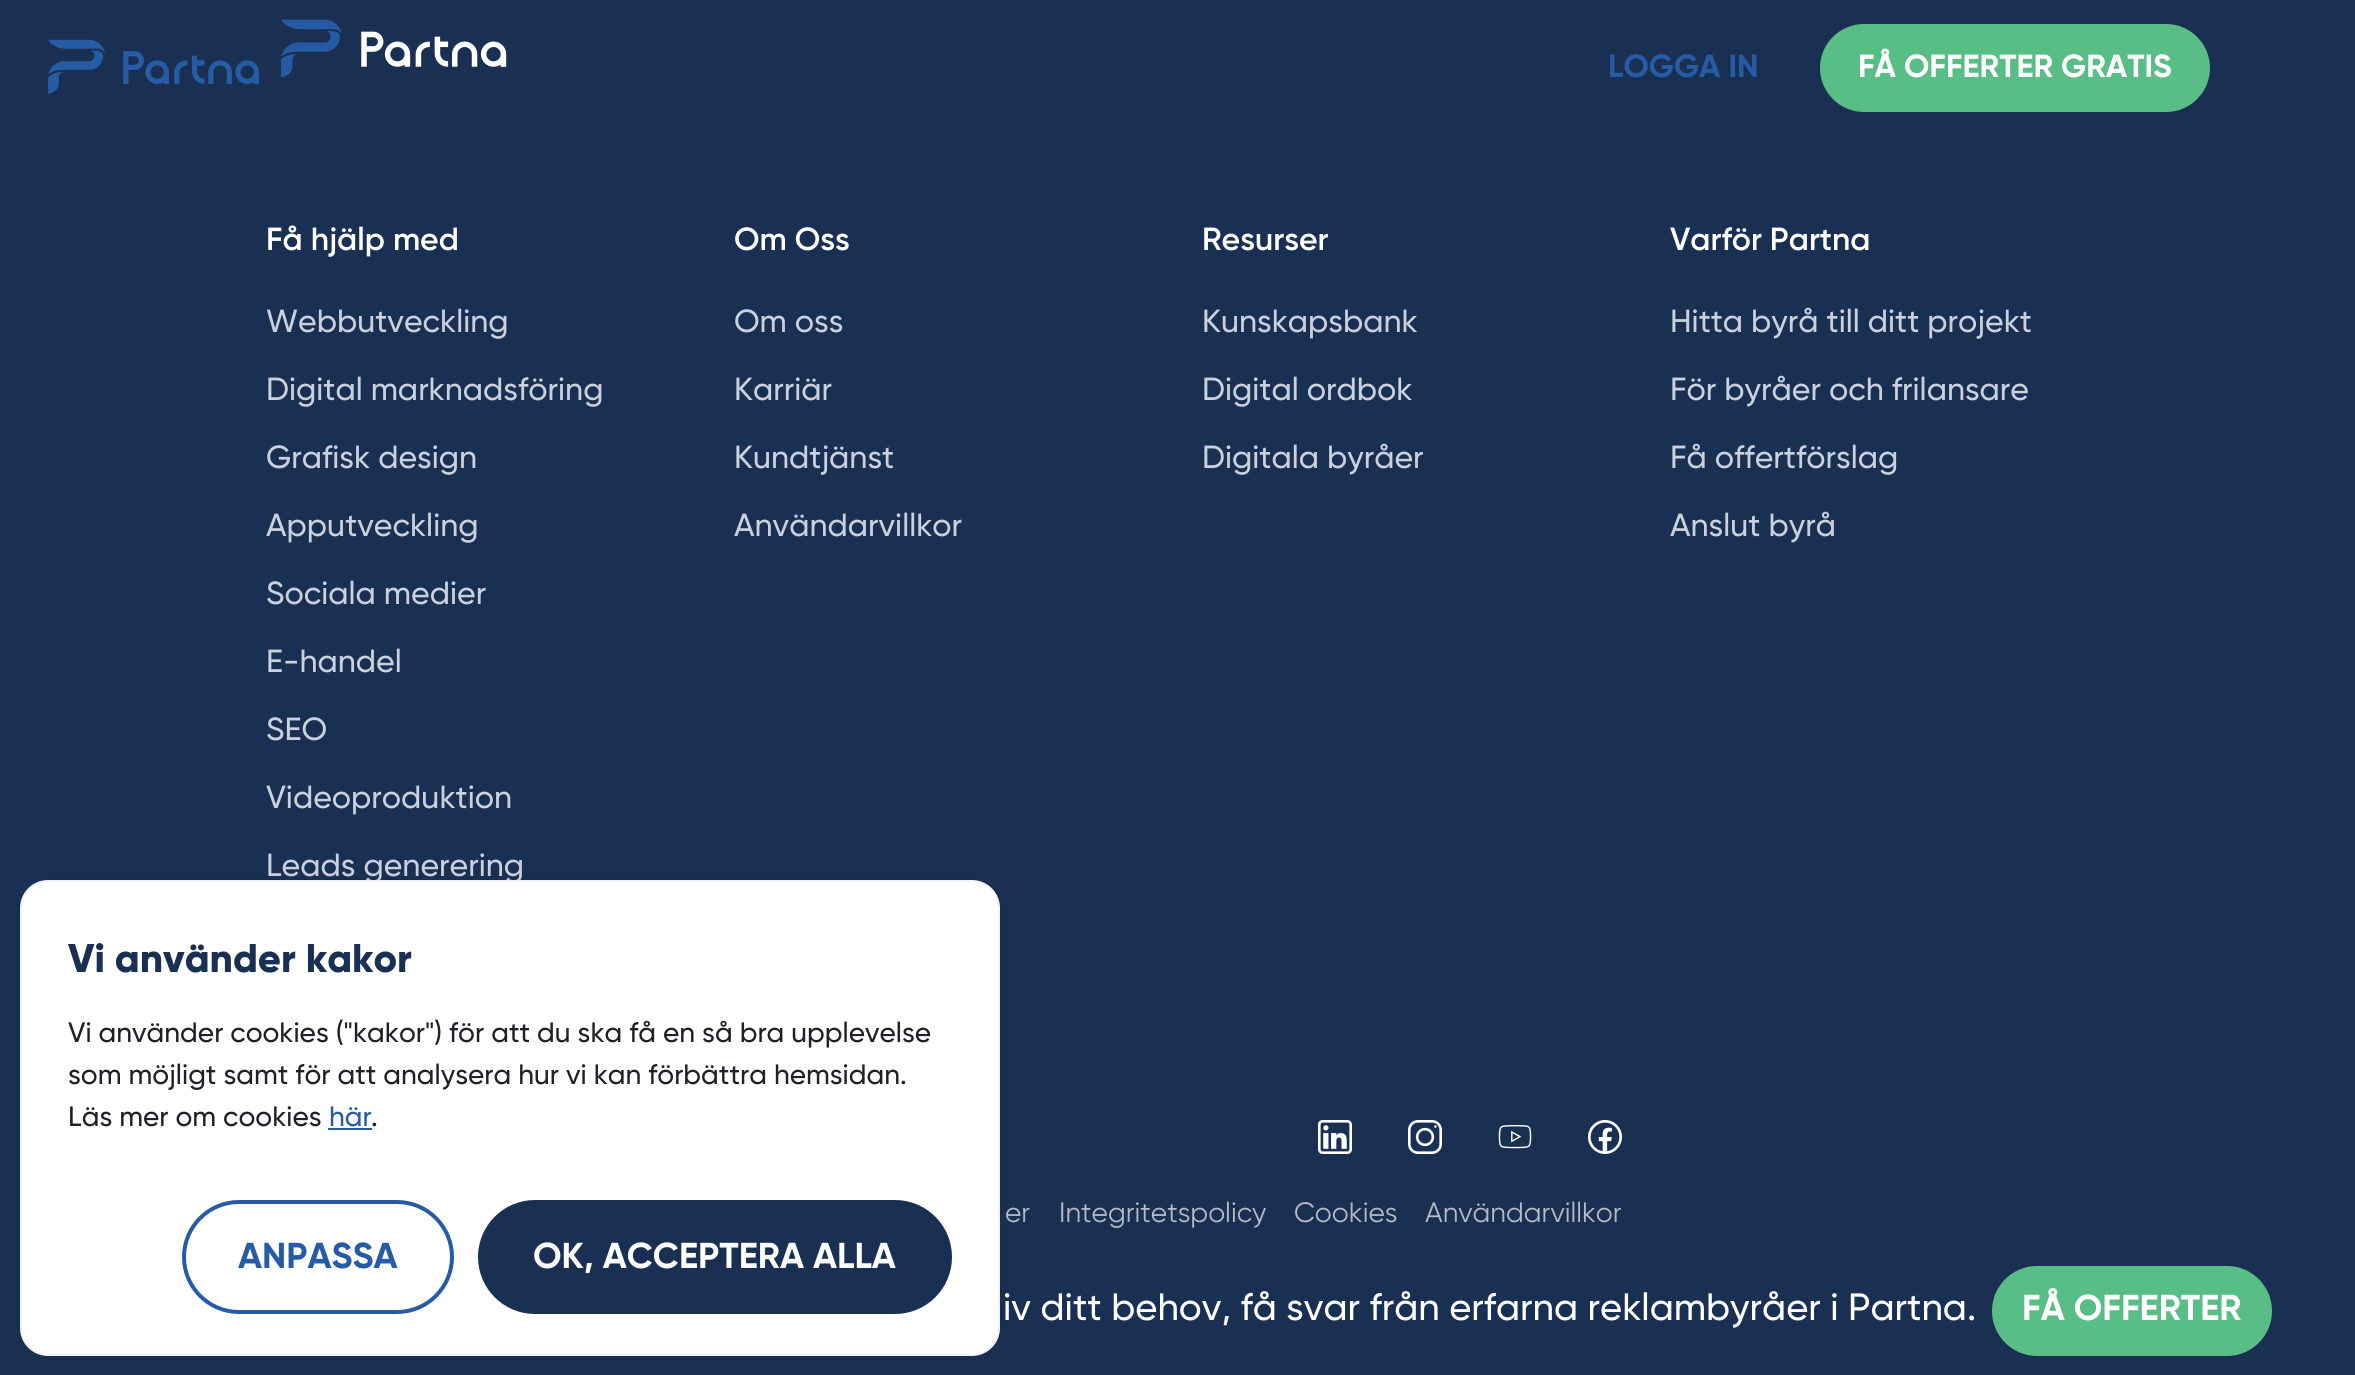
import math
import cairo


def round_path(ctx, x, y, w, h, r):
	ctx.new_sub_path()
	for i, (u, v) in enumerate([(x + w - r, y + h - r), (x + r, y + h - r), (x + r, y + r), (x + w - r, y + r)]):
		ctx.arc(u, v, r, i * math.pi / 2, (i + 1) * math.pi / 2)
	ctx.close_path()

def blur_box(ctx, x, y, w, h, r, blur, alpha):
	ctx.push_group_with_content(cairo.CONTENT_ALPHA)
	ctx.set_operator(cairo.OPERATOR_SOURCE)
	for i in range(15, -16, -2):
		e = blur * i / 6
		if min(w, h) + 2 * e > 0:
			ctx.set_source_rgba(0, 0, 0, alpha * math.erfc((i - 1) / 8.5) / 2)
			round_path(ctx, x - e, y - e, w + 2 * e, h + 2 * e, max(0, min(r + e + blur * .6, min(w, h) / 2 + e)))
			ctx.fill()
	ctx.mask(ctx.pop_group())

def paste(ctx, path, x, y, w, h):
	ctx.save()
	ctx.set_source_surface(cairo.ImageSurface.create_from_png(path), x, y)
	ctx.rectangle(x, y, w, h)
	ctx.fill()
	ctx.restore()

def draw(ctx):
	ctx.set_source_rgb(0.102, 0.188, 0.325)
	ctx.paint()
	paste(ctx, 'media/1.png', 48, 39, 211, 55)
	ctx.select_font_face('Gilroy', cairo.FONT_SLANT_NORMAL, cairo.FONT_WEIGHT_BOLD)
	ctx.set_font_size(32)
	ctx.set_source_rgb(0.149, 0.357, 0.647)
	ctx.move_to(1608, 77)
	ctx.show_text('LOGGA IN')
	ctx.set_source_rgb(0.345, 0.745, 0.522)
	round_path(ctx, 1820, 24, 390, 88, 44)
	ctx.fill()
	ctx.set_source_rgb(1, 1, 1)
	ctx.move_to(1858, 77)
	ctx.show_text('FÅ OFFERTER GRATIS')
	paste(ctx, 'media/2.png', 281, 19, 226, 59)
	ctx.select_font_face('Gilroy SemiBold')
	ctx.move_to(266, 250)
	ctx.show_text('Få hjälp med')
	ctx.select_font_face('Gilroy Medium')
	ctx.set_source_rgb(0.788, 0.82, 0.871)
	for x, y, s in [
		(266, 332, 'Webbutveckling'),
		(266, 400, 'Digital marknadsföring'),
		(266, 468, 'Grafisk design'),
		(266, 536, 'Apputveckling'),
		(266, 604, 'Sociala medier'),
		(266, 672, 'E-handel'),
		(266, 740, 'SEO'),
		(266, 808, 'Videoproduktion'),
		(266, 876, 'Leads generering'),
	]:
		ctx.move_to(x, y)
		ctx.show_text(s)
	ctx.select_font_face('Gilroy SemiBold')
	ctx.set_source_rgb(1, 1, 1)
	ctx.move_to(734, 250)
	ctx.show_text('Om Oss')
	ctx.select_font_face('Gilroy Medium')
	ctx.set_source_rgb(0.788, 0.82, 0.871)
	for x, y, s in [
		(734, 332, 'Om oss'),
		(734, 400, 'Karriär'),
		(734, 468, 'Kundtjänst'),
		(734, 536, 'Användarvillkor'),
	]:
		ctx.move_to(x, y)
		ctx.show_text(s)
	ctx.select_font_face('Gilroy SemiBold')
	ctx.set_source_rgb(1, 1, 1)
	ctx.move_to(1202, 250)
	ctx.show_text('Resurser')
	ctx.select_font_face('Gilroy Medium')
	ctx.set_source_rgb(0.788, 0.82, 0.871)
	for x, y, s in [
		(1202, 332, 'Kunskapsbank'),
		(1202, 400, 'Digital ordbok'),
		(1202, 468, 'Digitala byråer'),
	]:
		ctx.move_to(x, y)
		ctx.show_text(s)
	ctx.select_font_face('Gilroy SemiBold')
	ctx.set_source_rgb(1, 1, 1)
	ctx.move_to(1670, 250)
	ctx.show_text('Varför Partna')
	ctx.select_font_face('Gilroy Medium')
	ctx.set_source_rgb(0.788, 0.82, 0.871)
	for x, y, s in [
		(1670, 332, 'Hitta byrå till ditt projekt'),
		(1670, 400, 'För byråer och frilansare'),
		(1670, 468, 'Få offertförslag'),
		(1670, 536, 'Anslut byrå'),
	]:
		ctx.move_to(x, y)
		ctx.show_text(s)
	paste(ctx, 'media/3.png', 1318, 1120, 34, 34)
	paste(ctx, 'media/4.png', 1408, 1120, 34, 34)
	paste(ctx, 'media/5.png', 1498, 1125, 34, 24)
	paste(ctx, 'media/6.png', 1588, 1120, 34, 34)
	ctx.select_font_face('Gilroy')
	ctx.set_font_size(28)
	ctx.set_source_rgb(0.706, 0.733, 0.776)
	for x, y, s in [
		(1005, 1222, 'er'),
		(1059, 1222, 'Integritetspolicy'),
		(1294, 1222, 'Cookies'),
		(1425, 1222, 'Användarvillkor'),
	]:
		ctx.move_to(x, y)
		ctx.show_text(s)
	ctx.set_source_rgb(0, 0, 0)
	blur_box(ctx, 20, 880, 980, 476, 28, 4, 0.12)
	ctx.set_source_rgb(1, 1, 1)
	round_path(ctx, 21, 881, 978, 474, 27)
	ctx.fill_preserve()
	ctx.set_source_rgb(0.949, 0.949, 0.949)
	ctx.stroke()
	ctx.select_font_face('Gilroy ExtraBold')
	ctx.set_font_size(40)
	ctx.set_source_rgb(0.102, 0.188, 0.325)
	ctx.move_to(68, 972)
	ctx.show_text('Vi använder kakor')
	ctx.select_font_face('Gilroy Medium')
	ctx.set_font_size(28)
	ctx.set_source_rgb(0.118, 0.129, 0.153)
	for x, y, s in [
		(68, 1042, 'Vi använder cookies ("kakor") för att du ska få en så bra upplevelse'),
		(68, 1084, 'som möjligt samt för att analysera hur vi kan förbättra hemsidan.'),
		(68, 1126, 'Läs mer om cookies'),
	]:
		ctx.move_to(x, y)
		ctx.show_text(s)
	ctx.set_source_rgb(0.149, 0.357, 0.647)
	ctx.move_to(329, 1126)
	ctx.show_text('här')
	ctx.rectangle(328, 1128, 44, 2)
	ctx.fill()
	ctx.set_source_rgb(0.118, 0.129, 0.153)
	ctx.move_to(371, 1126)
	ctx.show_text('.')
	round_path(ctx, 184, 1202, 268, 110, 55)
	ctx.set_source_rgb(0.149, 0.357, 0.647)
	ctx.set_line_width(4)
	ctx.stroke()
	ctx.select_font_face('Gilroy', cairo.FONT_SLANT_NORMAL, cairo.FONT_WEIGHT_BOLD)
	ctx.set_font_size(36)
	ctx.move_to(238, 1268)
	ctx.show_text('ANPASSA')
	ctx.set_source_rgb(0.102, 0.188, 0.325)
	round_path(ctx, 480, 1202, 470, 110, 55)
	ctx.fill_preserve()
	ctx.stroke()
	ctx.set_source_rgb(1, 1, 1)
	ctx.move_to(533, 1268)
	ctx.show_text('OK, ACCEPTERA ALLA')
	ctx.select_font_face('Gilroy Medium')
	ctx.set_font_size(38)
	ctx.move_to(1003, 1320)
	ctx.show_text('iv ditt behov, få svar från erfarna reklambyråer i Partna.')
	ctx.set_source_rgb(0.345, 0.745, 0.522)
	round_path(ctx, 1992, 1266, 280, 90, 45)
	ctx.fill()
	ctx.select_font_face('Gilroy', cairo.FONT_SLANT_NORMAL, cairo.FONT_WEIGHT_BOLD)
	ctx.set_font_size(36)
	ctx.set_source_rgb(1, 1, 1)
	ctx.move_to(2022, 1320)
	ctx.show_text('FÅ OFFERTER')


surface = cairo.ImageSurface(cairo.FORMAT_RGB24, 2355, 1375)
ctx = cairo.Context(surface)
options = cairo.FontOptions()
options.set_hint_metrics(cairo.HINT_METRICS_OFF)
options.set_hint_style(cairo.HINT_STYLE_NONE)
ctx.set_font_options(options)
ctx.set_miter_limit(4)
draw(ctx)
surface.write_to_png('image.png')
